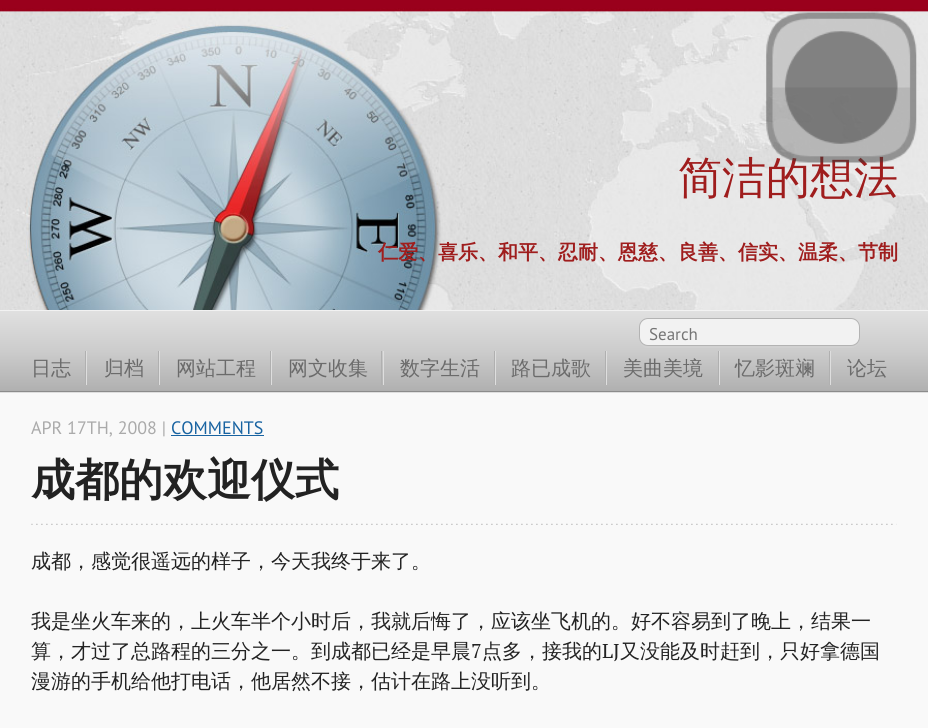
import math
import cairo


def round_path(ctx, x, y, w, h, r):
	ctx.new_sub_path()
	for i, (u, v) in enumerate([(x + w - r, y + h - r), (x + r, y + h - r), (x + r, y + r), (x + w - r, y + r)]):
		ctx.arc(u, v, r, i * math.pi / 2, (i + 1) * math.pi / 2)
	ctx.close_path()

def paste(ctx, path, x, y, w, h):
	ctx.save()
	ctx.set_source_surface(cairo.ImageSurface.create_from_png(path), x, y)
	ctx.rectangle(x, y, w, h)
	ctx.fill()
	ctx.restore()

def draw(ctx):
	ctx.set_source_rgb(1, 1, 1)
	ctx.paint()
	paste(ctx, 'media/2.png', 0, 0, 928, 310)
	ctx.select_font_face('WenQuanYi Zen Hei Medium')
	ctx.set_font_size(44)
	ctx.set_source_rgb(0.624, 0.114, 0.114)
	ctx.move_to(678, 193)
	ctx.show_text('简洁的想法')
	paste(ctx, 'media/1.png', 766, 12, 151, 151)
	ctx.select_font_face('WenQuanYi Zen Hei', cairo.FONT_SLANT_NORMAL, cairo.FONT_WEIGHT_BOLD)
	ctx.set_font_size(20)
	ctx.move_to(378, 259)
	ctx.show_text('仁爱、喜乐、和平、忍耐、恩慈、良善、信实、温柔、节制')
	gradient = cairo.LinearGradient(464, 311, 464, 391)
	gradient.add_color_stop_rgba(0, 0.878, 0.878, 0.878, 1)
	gradient.add_color_stop_rgba(0.5, 0.8, 0.8, 0.8, 1)
	gradient.add_color_stop_rgba(1, 0.69, 0.69, 0.69, 1)
	ctx.set_source(gradient)
	ctx.rectangle(0, 311, 928, 80)
	ctx.fill()
	gradient = cairo.LinearGradient(464, 391, 464, 471)
	gradient.add_color_stop_rgba(0, 0.878, 0.878, 0.878, 1)
	gradient.add_color_stop_rgba(0.5, 0.8, 0.8, 0.8, 1)
	gradient.add_color_stop_rgba(1, 0.69, 0.69, 0.69, 1)
	ctx.set_source(gradient)
	ctx.rectangle(0, 392, 928, 1)
	ctx.fill()
	ctx.set_source_rgb(0.949, 0.949, 0.949)
	ctx.rectangle(0, 310, 928, 1)
	ctx.fill()
	ctx.set_source_rgb(0.549, 0.549, 0.549)
	ctx.rectangle(0, 391, 928, 1)
	ctx.fill()
	ctx.set_source_rgb(0.82, 0.82, 0.82)
	ctx.new_path()
	ctx.move_to(639, 340)
	ctx.curve_to(640, 344, 643, 348, 648, 348)
	ctx.line_to(851, 348)
	ctx.curve_to(856, 348, 860, 344, 860, 339)
	ctx.line_to(860, 338)
	ctx.curve_to(860, 342, 856, 346, 851, 346)
	ctx.line_to(647, 346)
	ctx.curve_to(643, 346, 640, 344, 639, 340)
	ctx.close_path()
	ctx.fill()
	ctx.set_source_rgb(0.949, 0.949, 0.949)
	round_path(ctx, 639.5, 318.5, 220, 27, 8.5)
	ctx.fill_preserve()
	ctx.set_source_rgb(0.702, 0.702, 0.702)
	ctx.set_line_width(1)
	ctx.stroke()
	ctx.select_font_face('PT Sans')
	ctx.set_font_size(17)
	ctx.set_source_rgb(0.459, 0.459, 0.459)
	ctx.move_to(649, 340)
	ctx.show_text('Search')
	ctx.select_font_face('WenQuanYi Zen Hei Medium')
	ctx.set_font_size(20)
	ctx.set_source_rgb(0.42, 0.42, 0.42)
	ctx.move_to(31, 375)
	ctx.show_text('日志')
	ctx.set_source_rgb(0.69, 0.69, 0.69)
	ctx.rectangle(85, 351, 1, 34)
	ctx.fill()
	ctx.set_source_rgb(0.871, 0.871, 0.871)
	ctx.rectangle(86, 351, 1, 34)
	ctx.fill()
	ctx.set_source_rgb(0.42, 0.42, 0.42)
	ctx.move_to(104, 375)
	ctx.show_text('归档')
	ctx.set_source_rgb(0.69, 0.69, 0.69)
	ctx.rectangle(158, 351, 1, 34)
	ctx.fill()
	ctx.set_source_rgb(0.871, 0.871, 0.871)
	ctx.rectangle(159, 351, 1, 34)
	ctx.fill()
	ctx.set_source_rgb(0.42, 0.42, 0.42)
	ctx.move_to(176, 375)
	ctx.show_text('网站工程')
	ctx.set_source_rgb(0.69, 0.69, 0.69)
	ctx.rectangle(270, 351, 1, 34)
	ctx.fill()
	ctx.set_source_rgb(0.871, 0.871, 0.871)
	ctx.rectangle(271, 351, 1, 34)
	ctx.fill()
	ctx.set_source_rgb(0.42, 0.42, 0.42)
	ctx.move_to(288, 375)
	ctx.show_text('网文收集')
	ctx.set_source_rgb(0.69, 0.69, 0.69)
	ctx.rectangle(381, 351, 1, 34)
	ctx.fill()
	ctx.set_source_rgb(0.871, 0.871, 0.871)
	ctx.rectangle(383, 351, 1, 34)
	ctx.fill()
	ctx.set_source_rgb(0.42, 0.42, 0.42)
	ctx.move_to(400, 375)
	ctx.show_text('数字生活')
	ctx.set_source_rgb(0.69, 0.69, 0.69)
	ctx.rectangle(494, 351, 1, 34)
	ctx.fill()
	ctx.set_source_rgb(0.871, 0.871, 0.871)
	ctx.rectangle(495, 351, 1, 34)
	ctx.fill()
	ctx.set_source_rgb(0.42, 0.42, 0.42)
	ctx.move_to(511, 375)
	ctx.show_text('路已成歌')
	ctx.set_source_rgb(0.69, 0.69, 0.69)
	ctx.rectangle(605, 351, 1, 34)
	ctx.fill()
	ctx.set_source_rgb(0.871, 0.871, 0.871)
	ctx.rectangle(606, 351, 1, 34)
	ctx.fill()
	ctx.set_source_rgb(0.42, 0.42, 0.42)
	ctx.move_to(623, 375)
	ctx.show_text('美曲美境')
	ctx.set_source_rgb(0.69, 0.69, 0.69)
	ctx.rectangle(718, 351, 1, 34)
	ctx.fill()
	ctx.set_source_rgb(0.871, 0.871, 0.871)
	ctx.rectangle(719, 351, 1, 34)
	ctx.fill()
	ctx.set_source_rgb(0.42, 0.42, 0.42)
	ctx.move_to(735, 375)
	ctx.show_text('忆影斑斓')
	ctx.set_source_rgb(0.69, 0.69, 0.69)
	ctx.rectangle(829, 351, 1, 34)
	ctx.fill()
	ctx.set_source_rgb(0.871, 0.871, 0.871)
	ctx.rectangle(830, 351, 1, 34)
	ctx.fill()
	ctx.set_source_rgb(0.42, 0.42, 0.42)
	ctx.move_to(847, 375)
	ctx.show_text('论坛')
	ctx.set_source_rgb(0.973, 0.973, 0.973)
	ctx.rectangle(0, 393, 928, 335)
	ctx.fill()
	paste(ctx, 'media/3.png', 31, 523, 866, 2)
	ctx.select_font_face('PT Sans')
	ctx.set_font_size(18)
	ctx.set_source_rgb(0.667, 0.667, 0.667)
	ctx.move_to(31, 434)
	ctx.show_text('APR 17TH, 2008 |')
	ctx.set_source_rgb(0.094, 0.388, 0.631)
	ctx.move_to(171, 434)
	ctx.show_text('COMMENTS')
	ctx.rectangle(171, 435, 93, 1)
	ctx.fill()
	ctx.select_font_face('WenQuanYi Zen Hei', cairo.FONT_SLANT_NORMAL, cairo.FONT_WEIGHT_BOLD)
	ctx.set_font_size(44)
	ctx.set_source_rgb(0.133, 0.133, 0.133)
	ctx.move_to(31, 495)
	ctx.show_text('成都的欢迎仪式')
	ctx.select_font_face('WenQuanYi Zen Hei Medium')
	ctx.set_font_size(20)
	for x, y, s in [
		(31, 568, '成都，感觉很遥远的样子，今天我终于来了。'),
		(31, 628, '我是坐火车来的，上火车半个小时后，我就后悔了，应该坐飞机的。好不容易到了晚上，结果一'),
		(31, 658, '算，才过了总路程的三分之一。到成都已经是早晨'),
	]:
		ctx.move_to(x, y)
		ctx.show_text(s)
	ctx.select_font_face('PT Serif')
	ctx.move_to(471, 658)
	ctx.show_text('7')
	ctx.select_font_face('WenQuanYi Zen Hei Medium')
	ctx.move_to(482, 658)
	ctx.show_text('点多，接我的')
	ctx.select_font_face('PT Serif')
	ctx.move_to(602, 658)
	ctx.show_text('LJ')
	ctx.select_font_face('WenQuanYi Zen Hei Medium')
	ctx.move_to(620, 658)
	ctx.show_text('又没能及时赶到，只好拿德国')
	ctx.move_to(31, 688)
	ctx.show_text('漫游的手机给他打电话，他居然不接，估计在路上没听到。')


surface = cairo.ImageSurface(cairo.FORMAT_RGB24, 928, 728)
ctx = cairo.Context(surface)
options = cairo.FontOptions()
options.set_hint_metrics(cairo.HINT_METRICS_OFF)
options.set_hint_style(cairo.HINT_STYLE_NONE)
ctx.set_font_options(options)
ctx.set_miter_limit(4)
draw(ctx)
surface.write_to_png('image.png')
